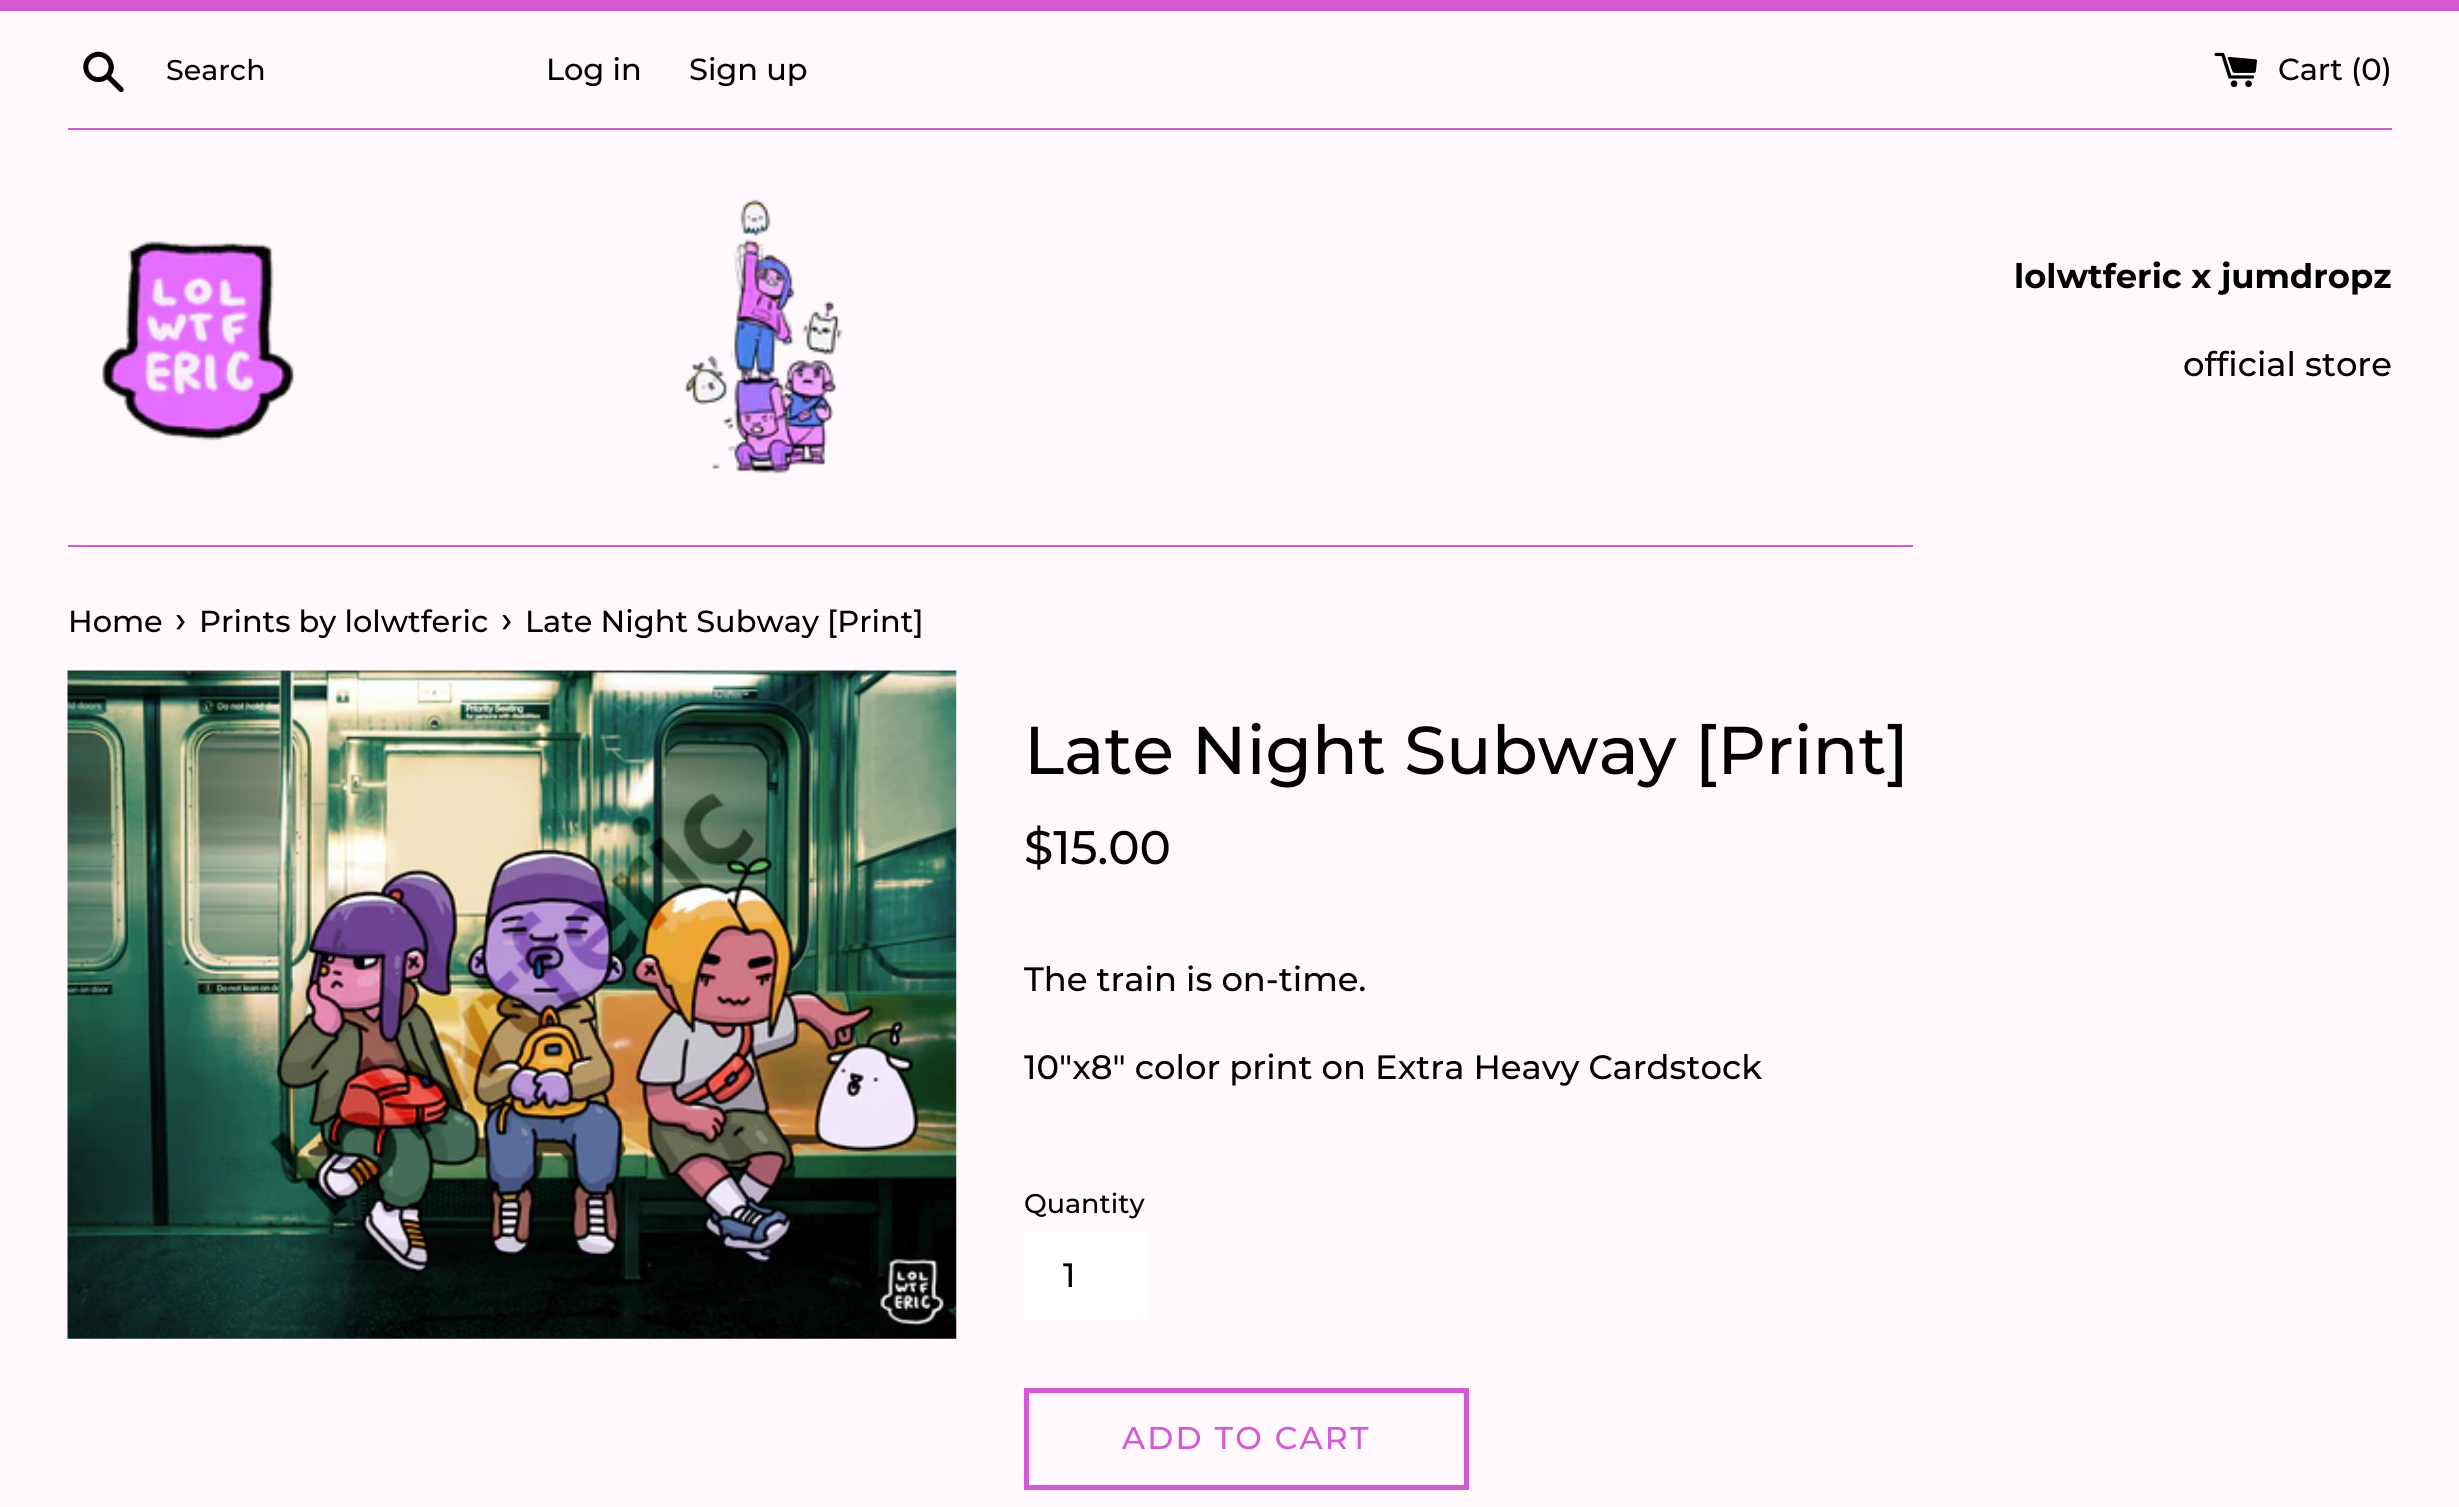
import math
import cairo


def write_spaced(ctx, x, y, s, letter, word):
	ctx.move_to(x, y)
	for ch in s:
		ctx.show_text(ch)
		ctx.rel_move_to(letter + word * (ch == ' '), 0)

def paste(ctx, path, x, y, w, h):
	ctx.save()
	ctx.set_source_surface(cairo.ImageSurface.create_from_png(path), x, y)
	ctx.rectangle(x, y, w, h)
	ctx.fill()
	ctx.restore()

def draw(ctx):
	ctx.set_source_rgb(1, 0.969, 0.992)
	ctx.paint()
	ctx.set_source_rgb(0.835, 0.345, 0.835)
	ctx.rectangle(0, 0, 2459, 11)
	ctx.fill()
	paste(ctx, 'media/1.png', 83, 51, 41, 42)
	ctx.select_font_face('Montserrat Medium')
	ctx.set_font_size(28.5)
	ctx.set_source_rgb(0, 0, 0)
	ctx.move_to(166, 80)
	ctx.show_text('Search')
	ctx.set_font_size(30.4)
	ctx.move_to(546, 80)
	ctx.show_text('Log in')
	ctx.move_to(689, 80)
	ctx.show_text('Sign up')
	paste(ctx, 'media/2.png', 2214, 52, 43, 36)
	ctx.move_to(2278, 80)
	ctx.show_text('Cart (0)')
	ctx.set_source_rgb(0.835, 0.345, 0.835)
	ctx.rectangle(68, 128, 2324, 2)
	ctx.fill()
	paste(ctx, 'media/3.png', 102, 199, 741, 275)
	ctx.select_font_face('Montserrat', cairo.FONT_SLANT_NORMAL, cairo.FONT_WEIGHT_BOLD)
	ctx.set_font_size(33.75)
	ctx.set_source_rgb(0, 0, 0)
	ctx.move_to(2014, 288)
	ctx.show_text('lolwtferic x jumdropz')
	ctx.select_font_face('Montserrat Medium')
	ctx.move_to(2183, 376)
	ctx.show_text('official store')
	ctx.set_source_rgb(0.835, 0.345, 0.835)
	ctx.rectangle(68, 545, 1845, 2)
	ctx.fill()
	ctx.set_font_size(30.4)
	ctx.set_source_rgb(0, 0, 0)
	ctx.move_to(68, 632)
	ctx.show_text('Home')
	ctx.set_font_size(37)
	ctx.move_to(175, 632)
	ctx.show_text('›')
	ctx.set_font_size(30.4)
	ctx.move_to(199, 632)
	ctx.show_text('Prints by lolwtferic')
	ctx.set_font_size(37)
	ctx.move_to(501, 632)
	ctx.show_text('›')
	ctx.set_font_size(30.4)
	ctx.move_to(525, 632)
	ctx.show_text('Late Night Subway [Print]')
	paste(ctx, 'media/4.png', 67, 670, 890, 669)
	ctx.set_font_size(67.5)
	ctx.move_to(1024, 774)
	ctx.show_text('Late Night Subway [Print]')
	ctx.set_font_size(47)
	ctx.move_to(1024, 864)
	ctx.show_text('$15.00')
	ctx.set_font_size(33.75)
	ctx.move_to(1024, 991)
	ctx.show_text('The train is on-time.')
	ctx.move_to(1024, 1079)
	ctx.show_text('10"x8" color print on Extra Heavy Cardstock')
	ctx.set_font_size(27)
	ctx.move_to(1024, 1213)
	ctx.show_text('Quantity')
	ctx.set_source_rgb(1, 1, 1)
	ctx.rectangle(1024, 1231, 124, 90)
	ctx.fill()
	ctx.set_font_size(33.75)
	ctx.set_source_rgb(0, 0, 0)
	ctx.move_to(1063, 1287)
	ctx.show_text('1')
	ctx.rectangle(1026.5, 1390.5, 440, 97)
	ctx.set_source_rgb(0.835, 0.345, 0.835)
	ctx.set_line_width(5)
	ctx.stroke()
	ctx.set_font_size(31.5)
	write_spaced(ctx, 1122, 1449, 'ADD TO CART', 2.25, 0)


surface = cairo.ImageSurface(cairo.FORMAT_RGB24, 2459, 1507)
ctx = cairo.Context(surface)
options = cairo.FontOptions()
options.set_hint_metrics(cairo.HINT_METRICS_OFF)
options.set_hint_style(cairo.HINT_STYLE_NONE)
ctx.set_font_options(options)
ctx.set_miter_limit(4)
draw(ctx)
surface.write_to_png('image.png')
